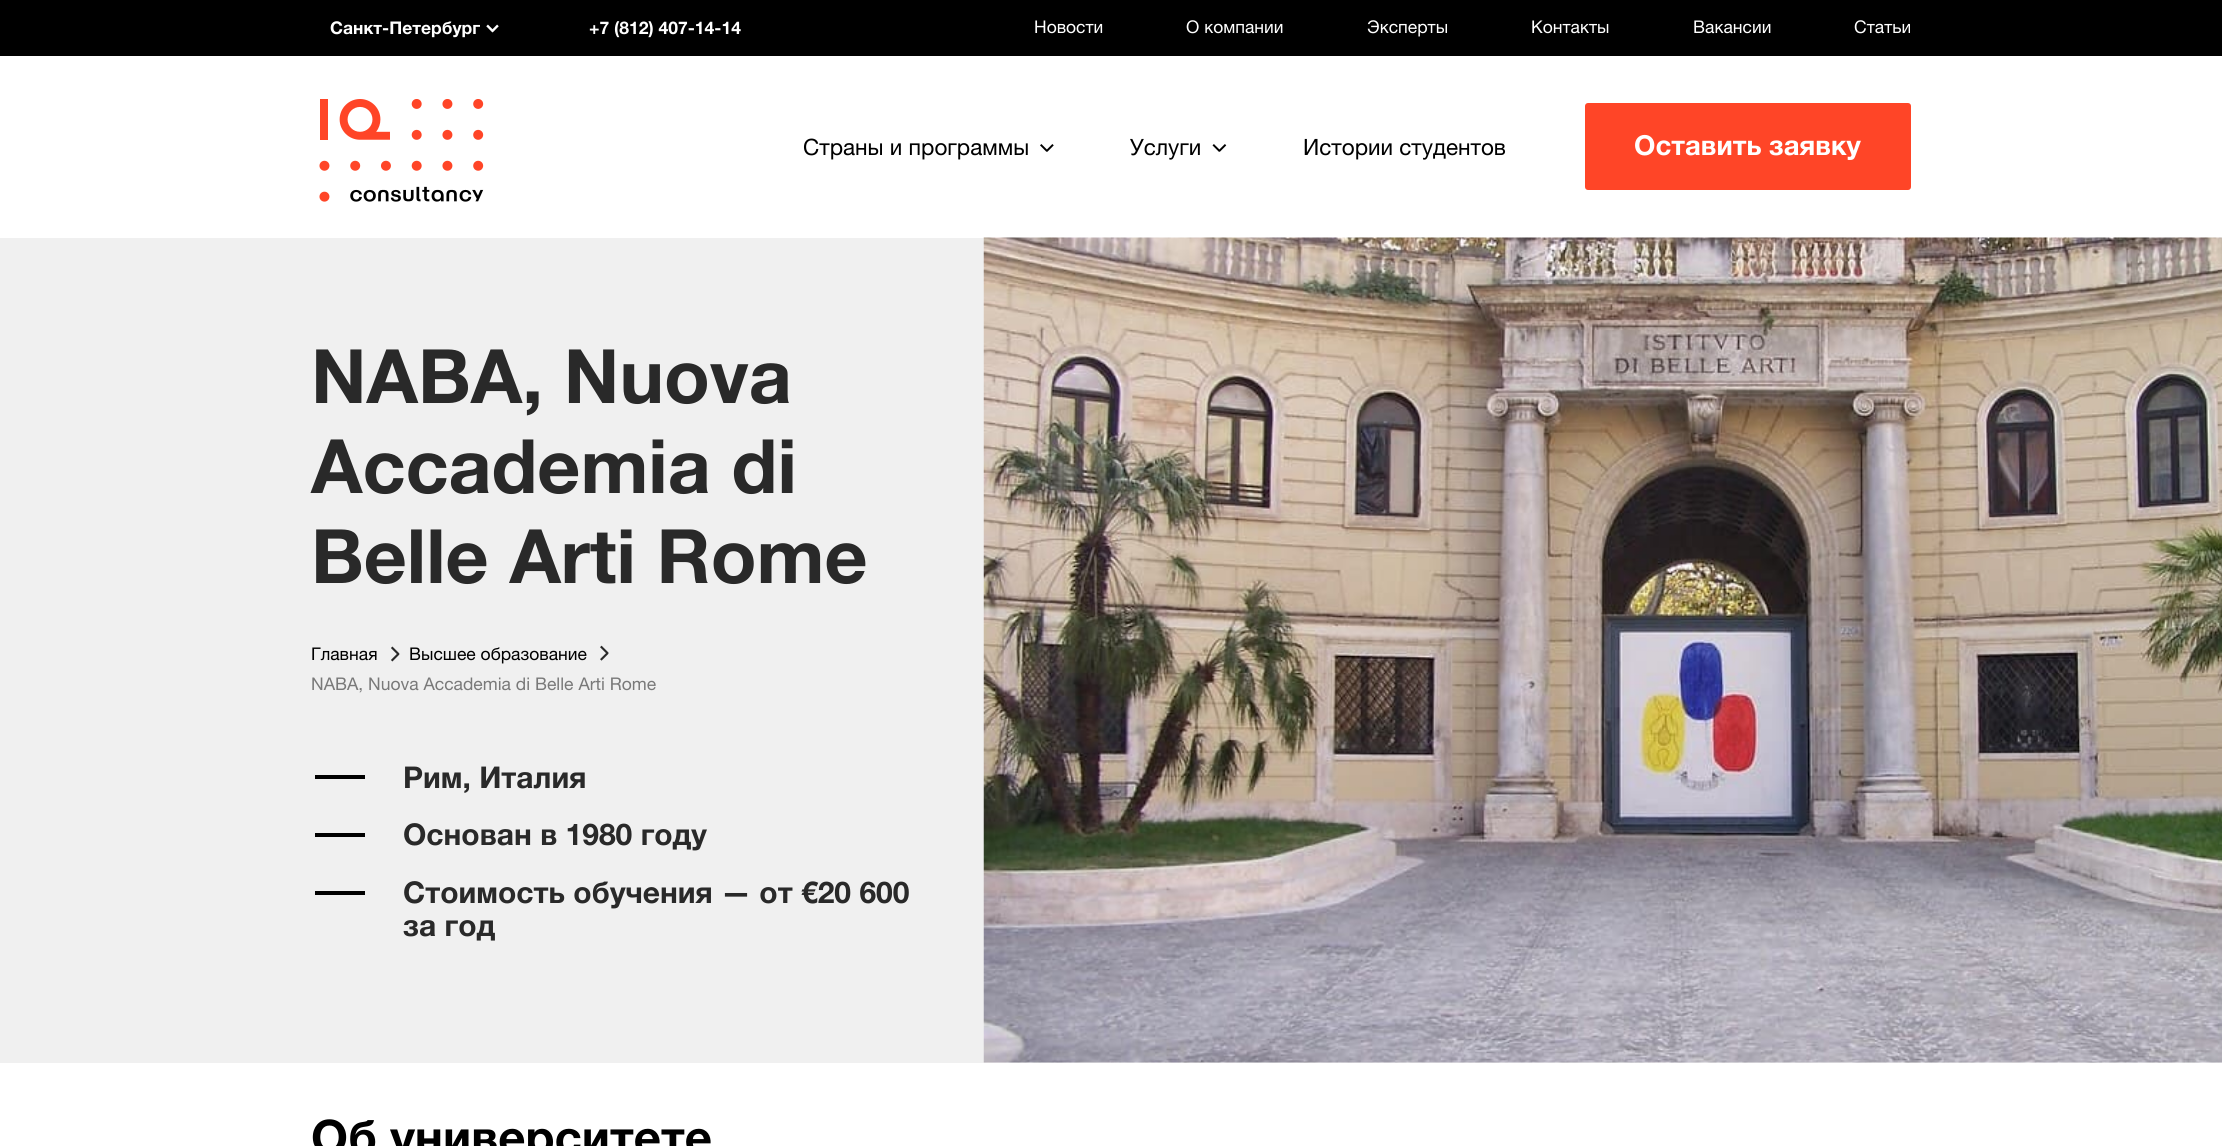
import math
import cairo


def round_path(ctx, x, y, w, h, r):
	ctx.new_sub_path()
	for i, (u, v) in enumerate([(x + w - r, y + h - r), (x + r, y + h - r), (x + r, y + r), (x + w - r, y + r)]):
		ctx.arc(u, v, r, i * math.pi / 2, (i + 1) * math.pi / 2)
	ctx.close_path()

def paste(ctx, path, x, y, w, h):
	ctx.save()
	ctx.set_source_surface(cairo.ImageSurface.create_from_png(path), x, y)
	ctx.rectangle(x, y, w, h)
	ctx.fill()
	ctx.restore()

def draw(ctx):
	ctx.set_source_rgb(1, 1, 1)
	ctx.paint()
	ctx.set_source_rgb(0, 0, 0)
	ctx.rectangle(0, 0, 2222, 56)
	ctx.fill()
	ctx.select_font_face('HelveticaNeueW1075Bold', cairo.FONT_SLANT_NORMAL, cairo.FONT_WEIGHT_BOLD)
	ctx.set_font_size(17.5)
	ctx.set_source_rgb(1, 1, 1)
	ctx.move_to(330, 34)
	ctx.show_text('Санкт-Петербург')
	paste(ctx, 'media/1.png', 486, 24, 13, 9)
	ctx.move_to(589, 34)
	ctx.show_text('+7 (812) 407-14-14')
	ctx.select_font_face('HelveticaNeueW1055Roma')
	for x, y, s in [
		(1034, 33, 'Новости'),
		(1186, 33, 'О компании'),
		(1367, 33, 'Эксперты'),
		(1531, 33, 'Контакты'),
		(1693, 33, 'Вакансии'),
		(1854, 33, 'Статьи'),
	]:
		ctx.move_to(x, y)
		ctx.show_text(s)
	paste(ctx, 'media/2.png', 319, 99, 165, 103)
	ctx.set_font_size(22.5)
	ctx.set_source_rgb(0, 0, 0)
	ctx.move_to(803, 155)
	ctx.show_text('Страны и программы')
	paste(ctx, 'media/3.png', 1040, 144, 14, 8)
	ctx.move_to(1130, 155)
	ctx.show_text('Услуги')
	paste(ctx, 'media/4.png', 1212, 144, 15, 8)
	ctx.move_to(1303, 155)
	ctx.show_text('Истории студентов')
	ctx.set_source_rgb(1, 0.271, 0.153)
	round_path(ctx, 1585, 103, 326, 87, 3)
	ctx.fill()
	ctx.select_font_face('HelveticaNeueW1075Bold', cairo.FONT_SLANT_NORMAL, cairo.FONT_WEIGHT_BOLD)
	ctx.set_font_size(27.5)
	ctx.set_source_rgb(1, 1, 1)
	ctx.move_to(1634, 155)
	ctx.show_text('Оставить заявку')
	ctx.set_source_rgb(0.941, 0.941, 0.941)
	ctx.rectangle(0, 238, 2222, 825)
	ctx.fill()
	ctx.set_font_size(75)
	ctx.set_source_rgb(0.161, 0.161, 0.161)
	for x, y, s in [
		(311, 403, 'NABA, Nuova'),
		(311, 493, 'Accademia di'),
		(311, 583, 'Belle Arti Rome'),
	]:
		ctx.move_to(x, y)
		ctx.show_text(s)
	ctx.select_font_face('HelveticaNeueW1055Roma')
	ctx.set_font_size(17.5)
	ctx.set_source_rgb(0, 0, 0)
	ctx.move_to(311, 660)
	ctx.show_text('Главная')
	paste(ctx, 'media/5.png', 391, 646, 9, 16)
	ctx.move_to(409, 660)
	ctx.show_text('Высшее образование')
	paste(ctx, 'media/6.png', 600, 645, 9, 16)
	ctx.set_source_rgb(0.475, 0.475, 0.475)
	ctx.move_to(311, 690)
	ctx.show_text('NABA, Nuova Accademia di Belle Arti Rome')
	ctx.set_source_rgb(0, 0, 0)
	ctx.rectangle(315, 775, 50, 4)
	ctx.fill()
	ctx.select_font_face('HelveticaNeueW1075Bold', cairo.FONT_SLANT_NORMAL, cairo.FONT_WEIGHT_BOLD)
	ctx.set_font_size(30)
	ctx.set_source_rgb(0.161, 0.161, 0.161)
	ctx.move_to(403, 788)
	ctx.show_text('Рим, Италия')
	ctx.set_source_rgb(0, 0, 0)
	ctx.rectangle(315, 833, 50, 4)
	ctx.fill()
	ctx.set_source_rgb(0.161, 0.161, 0.161)
	ctx.move_to(403, 845)
	ctx.show_text('Основан в 1980 году')
	ctx.set_source_rgb(0, 0, 0)
	ctx.rectangle(315, 891, 50, 4)
	ctx.fill()
	ctx.set_source_rgb(0.161, 0.161, 0.161)
	ctx.move_to(403, 903)
	ctx.show_text('Стоимость обучения — от €20 600')
	ctx.move_to(403, 936)
	ctx.show_text('за год')
	paste(ctx, 'media/7.png', 983, 237, 1239, 826)
	ctx.set_font_size(47.5)
	ctx.set_source_rgb(0, 0, 0)
	ctx.move_to(311, 1154)
	ctx.show_text('Об университете')


surface = cairo.ImageSurface(cairo.FORMAT_RGB24, 2222, 1146)
ctx = cairo.Context(surface)
options = cairo.FontOptions()
options.set_hint_metrics(cairo.HINT_METRICS_OFF)
options.set_hint_style(cairo.HINT_STYLE_NONE)
ctx.set_font_options(options)
ctx.set_miter_limit(4)
draw(ctx)
surface.write_to_png('image.png')
